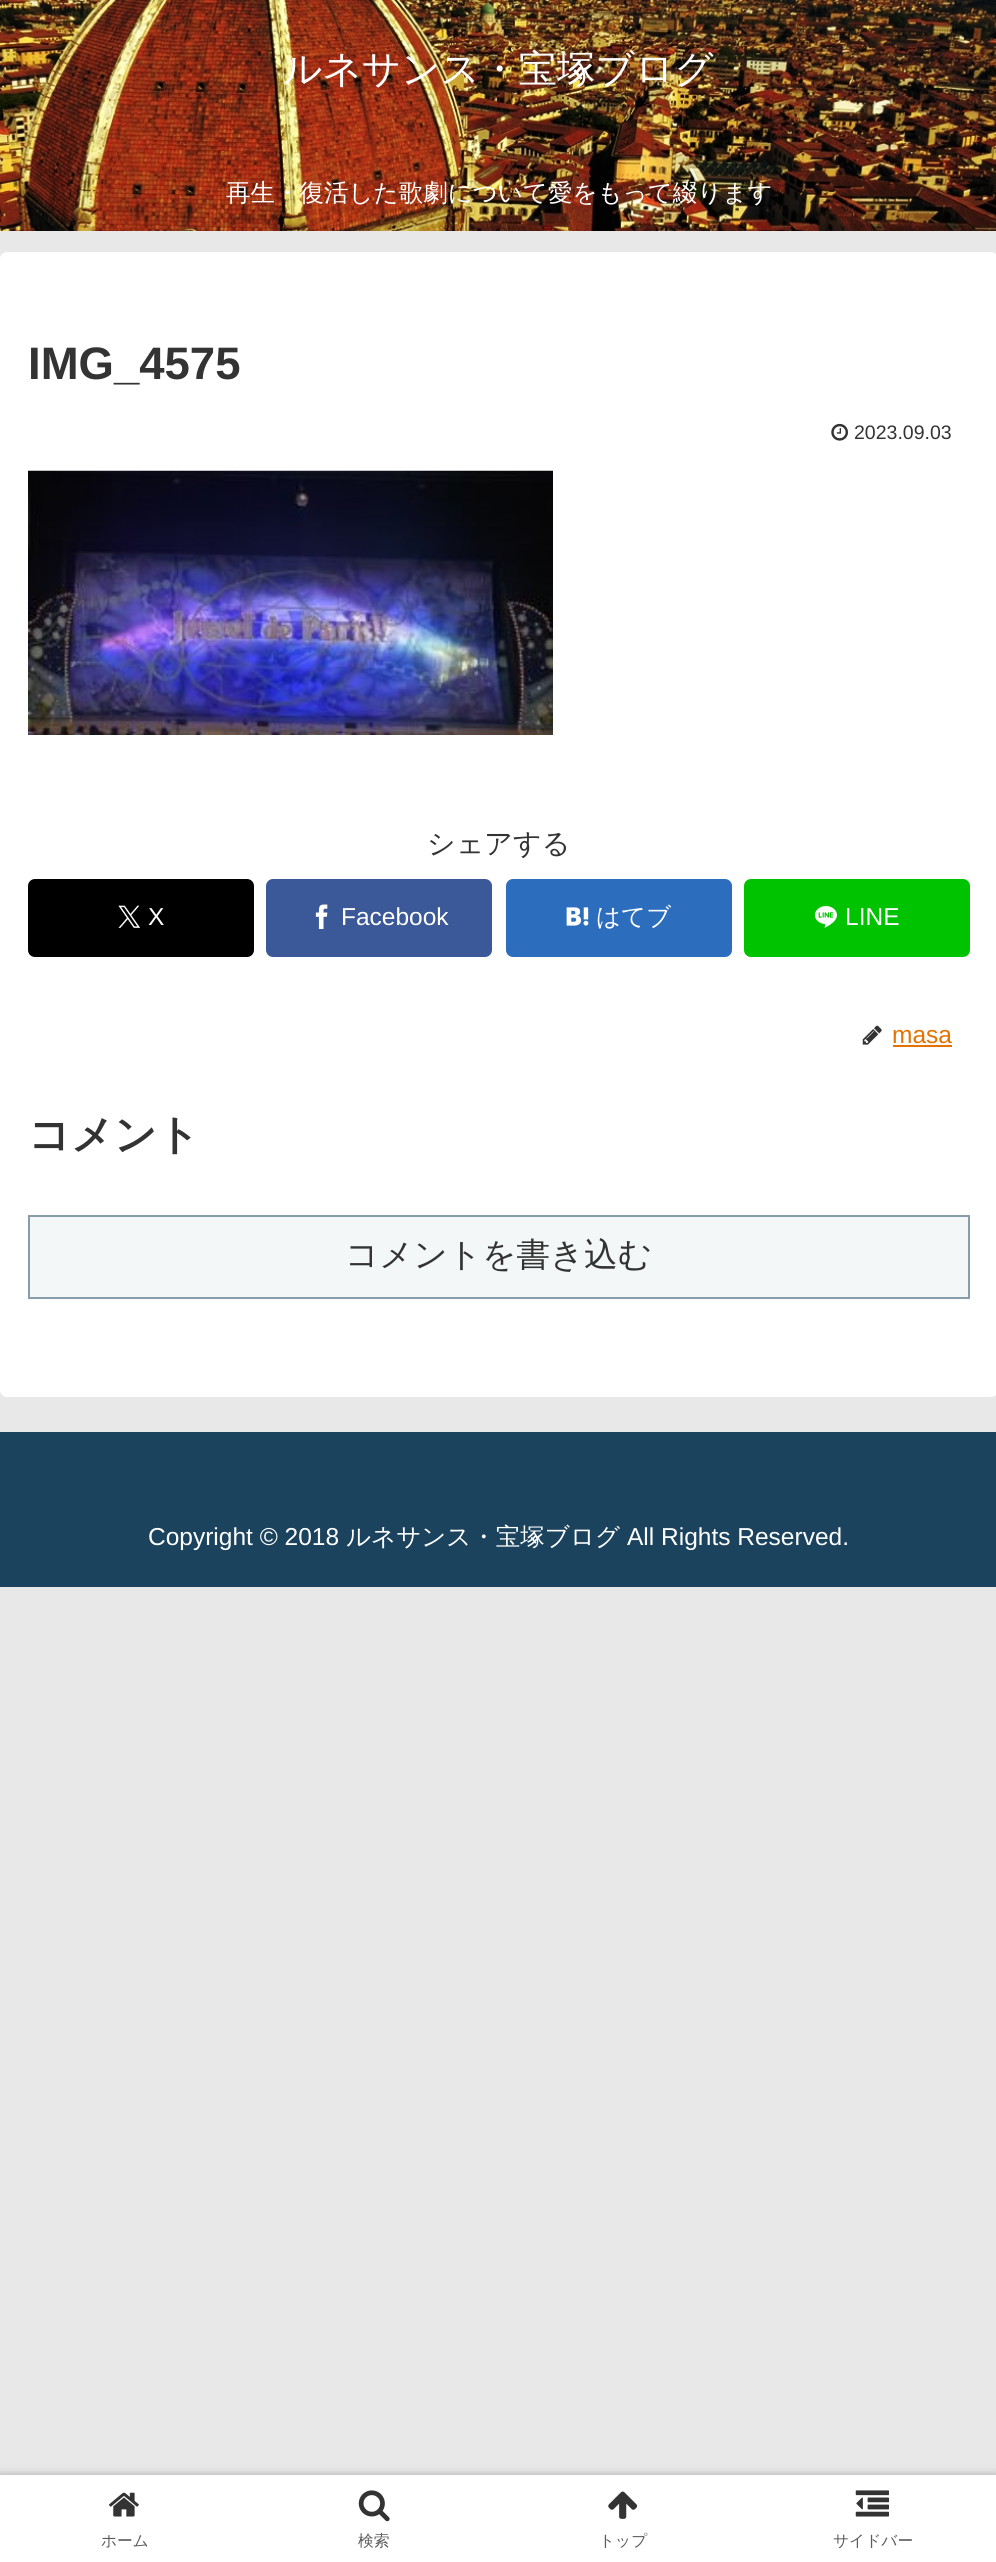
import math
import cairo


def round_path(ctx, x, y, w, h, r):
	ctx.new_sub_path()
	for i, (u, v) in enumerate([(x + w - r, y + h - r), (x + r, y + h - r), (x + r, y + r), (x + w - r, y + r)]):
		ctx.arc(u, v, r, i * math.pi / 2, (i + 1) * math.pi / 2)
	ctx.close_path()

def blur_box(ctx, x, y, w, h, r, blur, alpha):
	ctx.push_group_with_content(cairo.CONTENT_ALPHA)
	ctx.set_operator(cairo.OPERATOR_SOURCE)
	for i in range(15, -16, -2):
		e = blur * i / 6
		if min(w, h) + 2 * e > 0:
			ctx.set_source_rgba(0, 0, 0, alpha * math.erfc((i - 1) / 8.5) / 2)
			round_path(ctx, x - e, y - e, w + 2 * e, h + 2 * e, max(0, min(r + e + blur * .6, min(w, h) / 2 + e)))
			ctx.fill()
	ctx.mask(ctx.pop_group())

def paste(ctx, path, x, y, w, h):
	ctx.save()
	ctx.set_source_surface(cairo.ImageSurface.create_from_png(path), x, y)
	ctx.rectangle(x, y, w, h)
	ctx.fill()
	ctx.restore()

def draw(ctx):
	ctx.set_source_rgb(0.91, 0.91, 0.91)
	ctx.paint()
	paste(ctx, 'media/1.png', 0, 0, 996, 231)
	ctx.select_font_face('WenQuanYi Zen Hei Medium')
	ctx.set_font_size(38.5)
	ctx.set_source_rgb(1, 1, 1)
	ctx.move_to(283, 82)
	ctx.show_text('ルネサンス・宝塚ブログ')
	ctx.set_font_size(24.5)
	ctx.move_to(226, 201)
	ctx.show_text('再生・復活した歌劇について愛をもって綴ります')
	round_path(ctx, 0, 252, 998, 1145, 7)
	ctx.fill()
	ctx.select_font_face('Liberation Sans', cairo.FONT_SLANT_NORMAL, cairo.FONT_WEIGHT_BOLD)
	ctx.set_font_size(45.5)
	ctx.set_source_rgb(0.2, 0.2, 0.2)
	ctx.move_to(28, 379)
	ctx.show_text('IMG_4575')
	paste(ctx, 'media/2.png', 831, 423, 17, 18)
	ctx.select_font_face('Liberation Sans')
	ctx.set_font_size(19.5)
	ctx.move_to(854, 439)
	ctx.show_text('2023.09.03')
	paste(ctx, 'media/3.png', 28, 470, 525, 265)
	ctx.select_font_face('WenQuanYi Zen Hei Medium')
	ctx.set_font_size(28)
	ctx.move_to(427, 853)
	ctx.show_text('シェアする')
	ctx.set_source_rgb(0, 0, 0)
	round_path(ctx, 28, 879, 226, 78, 7)
	ctx.fill()
	paste(ctx, 'media/4.png', 118, 905, 22, 23)
	ctx.select_font_face('Liberation Sans')
	ctx.set_font_size(24.5)
	ctx.set_source_rgb(1, 1, 1)
	ctx.move_to(148, 925)
	ctx.show_text('X')
	ctx.set_source_rgb(0.231, 0.349, 0.596)
	round_path(ctx, 266, 879, 226, 78, 7)
	ctx.fill()
	paste(ctx, 'media/5.png', 315, 904, 13, 25)
	ctx.set_source_rgb(1, 1, 1)
	ctx.move_to(341, 925)
	ctx.show_text('Facebook')
	ctx.set_source_rgb(0.173, 0.431, 0.741)
	round_path(ctx, 506, 879, 226, 78, 7)
	ctx.fill()
	paste(ctx, 'media/6.png', 566, 907, 23, 19)
	ctx.select_font_face('WenQuanYi Zen Hei Medium')
	ctx.set_source_rgb(1, 1, 1)
	ctx.move_to(596, 925)
	ctx.show_text('はてブ')
	ctx.set_source_rgb(0, 0.765, 0)
	round_path(ctx, 744, 879, 226, 78, 7)
	ctx.fill()
	paste(ctx, 'media/7.png', 814, 906, 23, 22)
	ctx.select_font_face('Liberation Sans')
	ctx.set_source_rgb(1, 1, 1)
	ctx.move_to(845, 925)
	ctx.show_text('LINE')
	paste(ctx, 'media/8.png', 862, 1025, 20, 20)
	ctx.set_source_rgb(0.898, 0.447, 0)
	ctx.move_to(892, 1043)
	ctx.show_text('masa')
	ctx.rectangle(893, 1045, 59, 2)
	ctx.fill()
	ctx.select_font_face('WenQuanYi Zen Hei', cairo.FONT_SLANT_NORMAL, cairo.FONT_WEIGHT_BOLD)
	ctx.set_font_size(42)
	ctx.set_source_rgb(0.2, 0.2, 0.2)
	ctx.move_to(28, 1149)
	ctx.show_text('コメント')
	ctx.set_source_rgb(0.957, 0.965, 0.969)
	ctx.rectangle(29, 1216, 940, 82)
	ctx.fill_preserve()
	ctx.set_source_rgb(0.533, 0.616, 0.667)
	ctx.stroke()
	ctx.select_font_face('WenQuanYi Zen Hei Medium')
	ctx.set_font_size(33.5)
	ctx.set_source_rgb(0.2, 0.2, 0.2)
	ctx.move_to(345, 1266)
	ctx.show_text('コメントを書き込む')
	ctx.set_source_rgb(0.106, 0.263, 0.365)
	ctx.rectangle(0, 1432, 996, 155)
	ctx.fill()
	ctx.select_font_face('Liberation Sans')
	ctx.set_font_size(24.5)
	ctx.set_source_rgb(1, 1, 1)
	ctx.move_to(148, 1545)
	ctx.show_text('Copyright © 2018')
	ctx.select_font_face('WenQuanYi Zen Hei Medium')
	ctx.move_to(346, 1545)
	ctx.show_text('ルネサンス・宝塚ブログ')
	ctx.select_font_face('Liberation Sans')
	ctx.move_to(627, 1545)
	ctx.show_text('All Rights Reserved.')
	ctx.set_source_rgb(0.663, 0.663, 0.663)
	blur_box(ctx, 0, 2475, 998, 87, 0, 4.5, 1)
	ctx.set_source_rgb(1, 1, 1)
	ctx.rectangle(0, 2475, 996, 87)
	ctx.fill()
	paste(ctx, 'media/9.png', 109, 2492, 30, 25)
	ctx.select_font_face('WenQuanYi Zen Hei Medium')
	ctx.set_font_size(15.75)
	ctx.set_source_rgb(0.361, 0.361, 0.361)
	ctx.move_to(101, 2546)
	ctx.show_text('ホーム')
	paste(ctx, 'media/10.png', 358, 2490, 32, 32)
	ctx.move_to(358, 2546)
	ctx.show_text('検索')
	paste(ctx, 'media/11.png', 608, 2491, 30, 28)
	ctx.move_to(599, 2546)
	ctx.show_text('トップ')
	paste(ctx, 'media/12.png', 855, 2490, 34, 27)
	ctx.move_to(833, 2546)
	ctx.show_text('サイドバー')


surface = cairo.ImageSurface(cairo.FORMAT_RGB24, 996, 2562)
ctx = cairo.Context(surface)
options = cairo.FontOptions()
options.set_hint_metrics(cairo.HINT_METRICS_OFF)
options.set_hint_style(cairo.HINT_STYLE_NONE)
ctx.set_font_options(options)
ctx.set_miter_limit(4)
draw(ctx)
surface.write_to_png('image.png')
